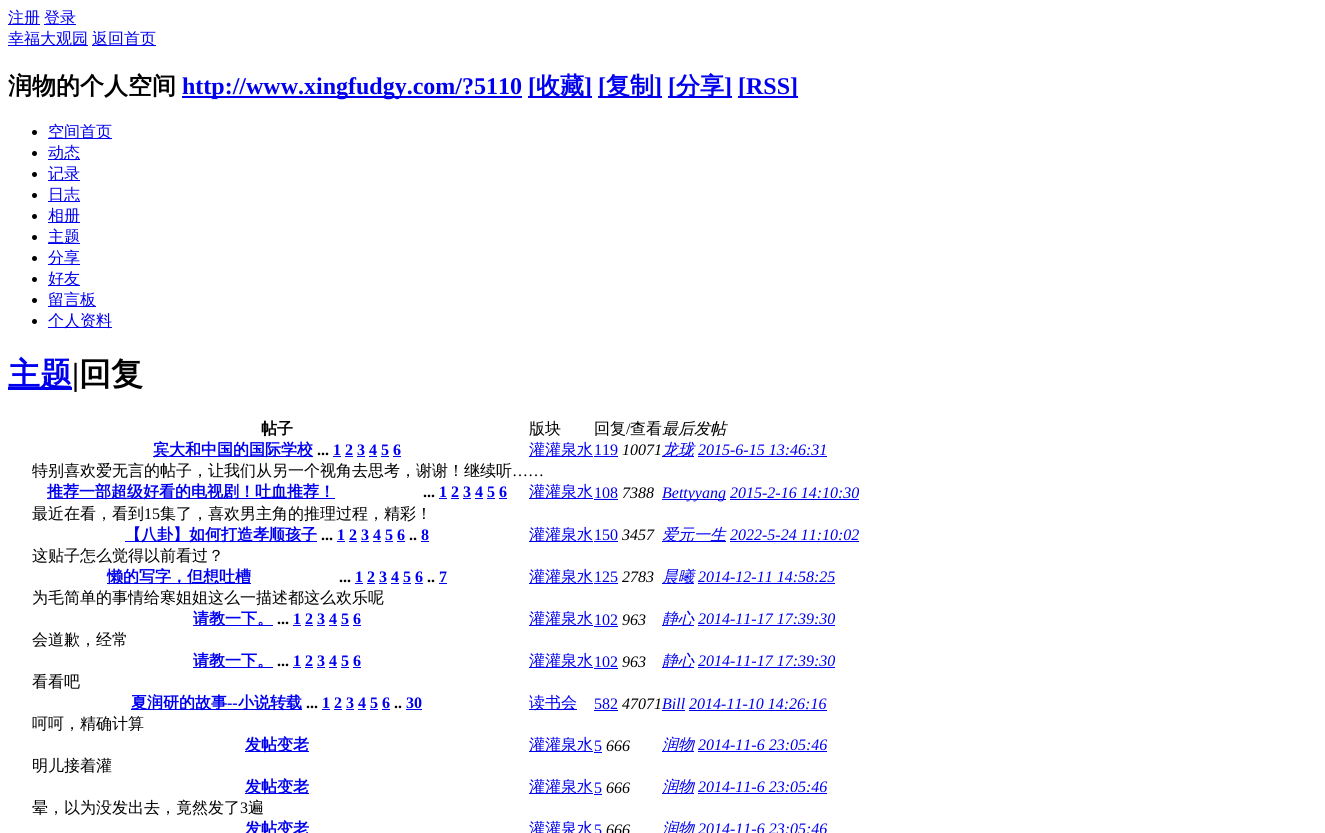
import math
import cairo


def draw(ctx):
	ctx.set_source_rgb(1, 1, 1)
	ctx.paint()
	ctx.set_source_rgb(0, 0, 0.933)
	ctx.rectangle(8, 24, 32, 1)
	ctx.fill()
	ctx.select_font_face('WenQuanYi Zen Hei Medium')
	ctx.set_font_size(16)
	ctx.move_to(8, 23)
	ctx.show_text('注册')
	ctx.rectangle(44, 24, 32, 1)
	ctx.fill()
	ctx.move_to(44, 23)
	ctx.show_text('登录')
	ctx.rectangle(8, 45, 80, 1)
	ctx.fill()
	ctx.move_to(8, 44)
	ctx.show_text('幸福大观园')
	ctx.rectangle(92, 45, 64, 1)
	ctx.fill()
	ctx.move_to(92, 44)
	ctx.show_text('返回首页')
	ctx.select_font_face('WenQuanYi Zen Hei', cairo.FONT_SLANT_NORMAL, cairo.FONT_WEIGHT_BOLD)
	ctx.set_font_size(24)
	ctx.set_source_rgb(0, 0, 0)
	ctx.move_to(8, 94)
	ctx.show_text('润物的个人空间')
	ctx.set_source_rgb(0, 0, 0.933)
	ctx.rectangle(182, 96, 340, 2)
	ctx.fill()
	ctx.select_font_face('Liberation Serif', cairo.FONT_SLANT_NORMAL, cairo.FONT_WEIGHT_BOLD)
	ctx.move_to(182, 94)
	ctx.show_text('http://www.xingfudgy.com/?5110')
	ctx.rectangle(528, 96, 64, 2)
	ctx.fill()
	ctx.move_to(528, 94)
	ctx.show_text('[')
	ctx.select_font_face('WenQuanYi Zen Hei', cairo.FONT_SLANT_NORMAL, cairo.FONT_WEIGHT_BOLD)
	ctx.move_to(536, 94)
	ctx.show_text('收藏')
	ctx.select_font_face('Liberation Serif', cairo.FONT_SLANT_NORMAL, cairo.FONT_WEIGHT_BOLD)
	ctx.move_to(584, 94)
	ctx.show_text(']')
	ctx.rectangle(598, 96, 64, 2)
	ctx.fill()
	ctx.move_to(598, 94)
	ctx.show_text('[')
	ctx.select_font_face('WenQuanYi Zen Hei', cairo.FONT_SLANT_NORMAL, cairo.FONT_WEIGHT_BOLD)
	ctx.move_to(606, 94)
	ctx.show_text('复制')
	ctx.select_font_face('Liberation Serif', cairo.FONT_SLANT_NORMAL, cairo.FONT_WEIGHT_BOLD)
	ctx.move_to(654, 94)
	ctx.show_text(']')
	ctx.rectangle(668, 96, 64, 2)
	ctx.fill()
	ctx.move_to(668, 94)
	ctx.show_text('[')
	ctx.select_font_face('WenQuanYi Zen Hei', cairo.FONT_SLANT_NORMAL, cairo.FONT_WEIGHT_BOLD)
	ctx.move_to(676, 94)
	ctx.show_text('分享')
	ctx.select_font_face('Liberation Serif', cairo.FONT_SLANT_NORMAL, cairo.FONT_WEIGHT_BOLD)
	ctx.move_to(724, 94)
	ctx.show_text(']')
	ctx.rectangle(738, 96, 60, 2)
	ctx.fill()
	ctx.move_to(738, 94)
	ctx.show_text('[RSS]')
	ctx.set_source_rgb(0, 0, 0)
	ctx.new_path()
	ctx.arc(34.5, 132.5, 2.5, 0, 2 * math.pi)
	ctx.fill()
	ctx.set_source_rgb(0, 0, 0.933)
	ctx.rectangle(48, 138, 64, 1)
	ctx.fill()
	ctx.select_font_face('WenQuanYi Zen Hei Medium')
	ctx.set_font_size(16)
	ctx.move_to(48, 137)
	ctx.show_text('空间首页')
	ctx.set_source_rgb(0, 0, 0)
	ctx.new_path()
	ctx.arc(34.5, 153.5, 2.5, 0, 2 * math.pi)
	ctx.fill()
	ctx.set_source_rgb(0, 0, 0.933)
	ctx.rectangle(48, 159, 32, 1)
	ctx.fill()
	ctx.move_to(48, 158)
	ctx.show_text('动态')
	ctx.set_source_rgb(0, 0, 0)
	ctx.new_path()
	ctx.arc(34.5, 174.5, 2.5, 0, 2 * math.pi)
	ctx.fill()
	ctx.set_source_rgb(0, 0, 0.933)
	ctx.rectangle(48, 180, 32, 1)
	ctx.fill()
	ctx.move_to(48, 179)
	ctx.show_text('记录')
	ctx.set_source_rgb(0, 0, 0)
	ctx.new_path()
	ctx.arc(34.5, 195.5, 2.5, 0, 2 * math.pi)
	ctx.fill()
	ctx.set_source_rgb(0, 0, 0.933)
	ctx.rectangle(48, 201, 32, 1)
	ctx.fill()
	ctx.move_to(48, 200)
	ctx.show_text('日志')
	ctx.set_source_rgb(0, 0, 0)
	ctx.new_path()
	ctx.arc(34.5, 216.5, 2.5, 0, 2 * math.pi)
	ctx.fill()
	ctx.set_source_rgb(0, 0, 0.933)
	ctx.rectangle(48, 222, 32, 1)
	ctx.fill()
	ctx.move_to(48, 221)
	ctx.show_text('相册')
	ctx.set_source_rgb(0, 0, 0)
	ctx.new_path()
	ctx.arc(34.5, 237.5, 2.5, 0, 2 * math.pi)
	ctx.fill()
	ctx.set_source_rgb(0, 0, 0.933)
	ctx.rectangle(48, 243, 32, 1)
	ctx.fill()
	ctx.move_to(48, 242)
	ctx.show_text('主题')
	ctx.set_source_rgb(0, 0, 0)
	ctx.new_path()
	ctx.arc(34.5, 258.5, 2.5, 0, 2 * math.pi)
	ctx.fill()
	ctx.set_source_rgb(0, 0, 0.933)
	ctx.rectangle(48, 264, 32, 1)
	ctx.fill()
	ctx.move_to(48, 263)
	ctx.show_text('分享')
	ctx.set_source_rgb(0, 0, 0)
	ctx.new_path()
	ctx.arc(34.5, 279.5, 2.5, 0, 2 * math.pi)
	ctx.fill()
	ctx.set_source_rgb(0, 0, 0.933)
	ctx.rectangle(48, 285, 32, 1)
	ctx.fill()
	ctx.move_to(48, 284)
	ctx.show_text('好友')
	ctx.set_source_rgb(0, 0, 0)
	ctx.new_path()
	ctx.arc(34.5, 300.5, 2.5, 0, 2 * math.pi)
	ctx.fill()
	ctx.set_source_rgb(0, 0, 0.933)
	ctx.rectangle(48, 306, 48, 1)
	ctx.fill()
	ctx.move_to(48, 305)
	ctx.show_text('留言板')
	ctx.set_source_rgb(0, 0, 0)
	ctx.new_path()
	ctx.arc(34.5, 321.5, 2.5, 0, 2 * math.pi)
	ctx.fill()
	ctx.set_source_rgb(0, 0, 0.933)
	ctx.rectangle(48, 327, 64, 1)
	ctx.fill()
	ctx.move_to(48, 326)
	ctx.show_text('个人资料')
	ctx.rectangle(8, 387, 64, 3)
	ctx.fill()
	ctx.select_font_face('WenQuanYi Zen Hei', cairo.FONT_SLANT_NORMAL, cairo.FONT_WEIGHT_BOLD)
	ctx.set_font_size(32)
	ctx.move_to(8, 385)
	ctx.show_text('主题')
	ctx.select_font_face('Liberation Serif', cairo.FONT_SLANT_NORMAL, cairo.FONT_WEIGHT_BOLD)
	ctx.set_source_rgb(0, 0, 0)
	ctx.move_to(72, 385)
	ctx.show_text('|')
	ctx.select_font_face('WenQuanYi Zen Hei', cairo.FONT_SLANT_NORMAL, cairo.FONT_WEIGHT_BOLD)
	ctx.move_to(79, 385)
	ctx.show_text('回复')
	ctx.set_font_size(16)
	ctx.move_to(261, 434)
	ctx.show_text('帖子')
	ctx.select_font_face('WenQuanYi Zen Hei Medium')
	ctx.move_to(529, 434)
	ctx.show_text('版块')
	ctx.move_to(594, 434)
	ctx.show_text('回复')
	ctx.select_font_face('Liberation Serif')
	ctx.move_to(626, 434)
	ctx.show_text('/')
	ctx.select_font_face('WenQuanYi Zen Hei Medium')
	ctx.move_to(630, 434)
	ctx.show_text('查看')
	ctx.select_font_face('WenQuanYi Zen Hei Medium', cairo.FONT_SLANT_ITALIC)
	ctx.move_to(662, 434)
	ctx.show_text('最后发帖')
	ctx.set_source_rgb(0, 0, 0.933)
	ctx.rectangle(153, 456, 160, 1)
	ctx.fill()
	ctx.select_font_face('WenQuanYi Zen Hei', cairo.FONT_SLANT_NORMAL, cairo.FONT_WEIGHT_BOLD)
	ctx.move_to(153, 455)
	ctx.show_text('宾大和中国的国际学校')
	ctx.select_font_face('Liberation Serif', cairo.FONT_SLANT_NORMAL, cairo.FONT_WEIGHT_BOLD)
	ctx.set_source_rgb(0, 0, 0)
	ctx.move_to(317, 455)
	ctx.show_text('...')
	ctx.set_source_rgb(0, 0, 0.933)
	ctx.rectangle(333, 456, 8, 1)
	ctx.fill()
	ctx.move_to(333, 455)
	ctx.show_text('1 2 3 4 5 6')
	ctx.rectangle(345, 456, 8, 1)
	ctx.rectangle(357, 456, 8, 1)
	ctx.rectangle(369, 456, 8, 1)
	ctx.rectangle(381, 456, 8, 1)
	ctx.rectangle(393, 456, 8, 1)
	ctx.rectangle(529, 456, 64, 1)
	ctx.fill()
	ctx.select_font_face('WenQuanYi Zen Hei Medium')
	ctx.move_to(529, 455)
	ctx.show_text('灌灌泉水')
	ctx.select_font_face('Liberation Serif')
	ctx.move_to(594, 455)
	ctx.show_text('119')
	ctx.rectangle(594, 456, 24, 1)
	ctx.fill()
	ctx.select_font_face('Liberation Serif', cairo.FONT_SLANT_ITALIC)
	ctx.set_source_rgb(0, 0, 0)
	ctx.move_to(622, 455)
	ctx.show_text('10071')
	ctx.set_source_rgb(0, 0, 0.933)
	ctx.rectangle(662, 456, 32, 1)
	ctx.fill()
	ctx.select_font_face('WenQuanYi Zen Hei Medium', cairo.FONT_SLANT_ITALIC)
	ctx.move_to(662, 455)
	ctx.show_text('龙珑')
	ctx.select_font_face('Liberation Serif', cairo.FONT_SLANT_ITALIC)
	ctx.move_to(698, 455)
	ctx.show_text('2015-6-15 13:46:31')
	ctx.rectangle(698, 456, 129, 1)
	ctx.fill()
	ctx.select_font_face('WenQuanYi Zen Hei Medium')
	ctx.set_source_rgb(0, 0, 0)
	ctx.move_to(32, 476)
	ctx.show_text('特别喜欢爱无言的帖子，让我们从另一个视角去思考，谢谢！继续听')
	ctx.select_font_face('Liberation Serif')
	ctx.move_to(512, 476)
	ctx.show_text('……')
	ctx.set_source_rgb(0, 0, 0.933)
	ctx.rectangle(47, 498, 288, 1)
	ctx.fill()
	ctx.select_font_face('WenQuanYi Zen Hei', cairo.FONT_SLANT_NORMAL, cairo.FONT_WEIGHT_BOLD)
	ctx.move_to(47, 497)
	ctx.show_text('推荐一部超级好看的电视剧！吐血推荐！')
	ctx.select_font_face('Liberation Serif', cairo.FONT_SLANT_NORMAL, cairo.FONT_WEIGHT_BOLD)
	ctx.set_source_rgb(0, 0, 0)
	ctx.move_to(423, 497)
	ctx.show_text('...')
	ctx.set_source_rgb(0, 0, 0.933)
	ctx.rectangle(439, 498, 8, 1)
	ctx.fill()
	ctx.move_to(439, 497)
	ctx.show_text('1 2 3 4 5 6')
	ctx.rectangle(451, 498, 8, 1)
	ctx.rectangle(463, 498, 8, 1)
	ctx.rectangle(475, 498, 8, 1)
	ctx.rectangle(487, 498, 8, 1)
	ctx.rectangle(499, 498, 8, 1)
	ctx.rectangle(529, 498, 64, 1)
	ctx.fill()
	ctx.select_font_face('WenQuanYi Zen Hei Medium')
	ctx.move_to(529, 497)
	ctx.show_text('灌灌泉水')
	ctx.select_font_face('Liberation Serif')
	ctx.move_to(594, 498)
	ctx.show_text('108')
	ctx.rectangle(594, 499, 24, 1)
	ctx.fill()
	ctx.select_font_face('Liberation Serif', cairo.FONT_SLANT_ITALIC)
	ctx.set_source_rgb(0, 0, 0)
	ctx.move_to(622, 498)
	ctx.show_text('7388')
	ctx.set_source_rgb(0, 0, 0.933)
	ctx.rectangle(662, 499, 64, 1)
	ctx.fill()
	ctx.move_to(662, 498)
	ctx.show_text('Bettyyang 2015-2-16 14:10:30')
	ctx.rectangle(730, 499, 129, 1)
	ctx.fill()
	ctx.select_font_face('WenQuanYi Zen Hei Medium')
	ctx.set_source_rgb(0, 0, 0)
	ctx.move_to(32, 519)
	ctx.show_text('最近在看，看到')
	ctx.select_font_face('Liberation Serif')
	ctx.move_to(144, 519)
	ctx.show_text('15')
	ctx.select_font_face('WenQuanYi Zen Hei Medium')
	ctx.move_to(160, 519)
	ctx.show_text('集了，喜欢男主角的推理过程，精彩！')
	ctx.set_source_rgb(0, 0, 0.933)
	ctx.rectangle(125, 541, 192, 1)
	ctx.fill()
	ctx.select_font_face('WenQuanYi Zen Hei', cairo.FONT_SLANT_NORMAL, cairo.FONT_WEIGHT_BOLD)
	ctx.move_to(125, 540)
	ctx.show_text('【八卦】如何打造孝顺孩子')
	ctx.select_font_face('Liberation Serif', cairo.FONT_SLANT_NORMAL, cairo.FONT_WEIGHT_BOLD)
	ctx.set_source_rgb(0, 0, 0)
	ctx.move_to(321, 540)
	ctx.show_text('...')
	ctx.set_source_rgb(0, 0, 0.933)
	ctx.rectangle(337, 541, 8, 1)
	ctx.fill()
	ctx.move_to(337, 540)
	ctx.show_text('1 2 3 4 5 6')
	ctx.rectangle(349, 541, 8, 1)
	ctx.rectangle(361, 541, 8, 1)
	ctx.rectangle(373, 541, 8, 1)
	ctx.rectangle(385, 541, 8, 1)
	ctx.fill()
	ctx.set_source_rgb(0, 0, 0)
	ctx.move_to(409, 540)
	ctx.show_text('..')
	ctx.set_source_rgb(0, 0, 0.933)
	ctx.rectangle(397, 541, 8, 1)
	ctx.fill()
	ctx.rectangle(421, 541, 8, 1)
	ctx.fill()
	ctx.move_to(421, 540)
	ctx.show_text('8')
	ctx.rectangle(529, 541, 64, 1)
	ctx.fill()
	ctx.select_font_face('WenQuanYi Zen Hei Medium')
	ctx.move_to(529, 540)
	ctx.show_text('灌灌泉水')
	ctx.select_font_face('Liberation Serif')
	ctx.move_to(594, 540)
	ctx.show_text('150')
	ctx.rectangle(594, 541, 24, 1)
	ctx.fill()
	ctx.select_font_face('Liberation Serif', cairo.FONT_SLANT_ITALIC)
	ctx.set_source_rgb(0, 0, 0)
	ctx.move_to(622, 540)
	ctx.show_text('3457')
	ctx.set_source_rgb(0, 0, 0.933)
	ctx.rectangle(662, 541, 64, 1)
	ctx.fill()
	ctx.select_font_face('WenQuanYi Zen Hei Medium', cairo.FONT_SLANT_ITALIC)
	ctx.move_to(662, 540)
	ctx.show_text('爱元一生')
	ctx.select_font_face('Liberation Serif', cairo.FONT_SLANT_ITALIC)
	ctx.move_to(730, 540)
	ctx.show_text('2022-5-24 11:10:02')
	ctx.rectangle(730, 541, 129, 1)
	ctx.fill()
	ctx.select_font_face('WenQuanYi Zen Hei Medium')
	ctx.set_source_rgb(0, 0, 0)
	ctx.move_to(32, 561)
	ctx.show_text('这贴子怎么觉得以前看过？')
	ctx.set_source_rgb(0, 0, 0.933)
	ctx.rectangle(107, 583, 144, 1)
	ctx.fill()
	ctx.select_font_face('WenQuanYi Zen Hei', cairo.FONT_SLANT_NORMAL, cairo.FONT_WEIGHT_BOLD)
	ctx.move_to(107, 582)
	ctx.show_text('懒的写字，但想吐槽')
	ctx.select_font_face('Liberation Serif', cairo.FONT_SLANT_NORMAL, cairo.FONT_WEIGHT_BOLD)
	ctx.set_source_rgb(0, 0, 0)
	ctx.move_to(339, 582)
	ctx.show_text('...')
	ctx.set_source_rgb(0, 0, 0.933)
	ctx.rectangle(355, 583, 8, 1)
	ctx.fill()
	ctx.move_to(355, 582)
	ctx.show_text('1 2 3 4 5 6')
	ctx.rectangle(367, 583, 8, 1)
	ctx.rectangle(379, 583, 8, 1)
	ctx.rectangle(391, 583, 8, 1)
	ctx.rectangle(403, 583, 8, 1)
	ctx.fill()
	ctx.set_source_rgb(0, 0, 0)
	ctx.move_to(427, 582)
	ctx.show_text('..')
	ctx.set_source_rgb(0, 0, 0.933)
	ctx.rectangle(415, 583, 8, 1)
	ctx.fill()
	ctx.rectangle(439, 583, 8, 1)
	ctx.fill()
	ctx.move_to(439, 582)
	ctx.show_text('7')
	ctx.rectangle(529, 583, 64, 1)
	ctx.fill()
	ctx.select_font_face('WenQuanYi Zen Hei Medium')
	ctx.move_to(529, 582)
	ctx.show_text('灌灌泉水')
	ctx.select_font_face('Liberation Serif')
	ctx.move_to(594, 582)
	ctx.show_text('125')
	ctx.rectangle(594, 583, 24, 1)
	ctx.fill()
	ctx.select_font_face('Liberation Serif', cairo.FONT_SLANT_ITALIC)
	ctx.set_source_rgb(0, 0, 0)
	ctx.move_to(622, 582)
	ctx.show_text('2783')
	ctx.set_source_rgb(0, 0, 0.933)
	ctx.rectangle(662, 583, 32, 1)
	ctx.fill()
	ctx.select_font_face('WenQuanYi Zen Hei Medium', cairo.FONT_SLANT_ITALIC)
	ctx.move_to(662, 582)
	ctx.show_text('晨曦')
	ctx.select_font_face('Liberation Serif', cairo.FONT_SLANT_ITALIC)
	ctx.move_to(698, 582)
	ctx.show_text('2014-12-11 14:58:25')
	ctx.rectangle(698, 583, 137, 1)
	ctx.fill()
	ctx.select_font_face('WenQuanYi Zen Hei Medium')
	ctx.set_source_rgb(0, 0, 0)
	ctx.move_to(32, 603)
	ctx.show_text('为毛简单的事情给寒姐姐这么一描述都这么欢乐呢')
	ctx.set_source_rgb(0, 0, 0.933)
	ctx.rectangle(193, 625, 80, 1)
	ctx.fill()
	ctx.select_font_face('WenQuanYi Zen Hei', cairo.FONT_SLANT_NORMAL, cairo.FONT_WEIGHT_BOLD)
	ctx.move_to(193, 624)
	ctx.show_text('请教一下。')
	ctx.select_font_face('Liberation Serif', cairo.FONT_SLANT_NORMAL, cairo.FONT_WEIGHT_BOLD)
	ctx.set_source_rgb(0, 0, 0)
	ctx.move_to(277, 624)
	ctx.show_text('...')
	ctx.set_source_rgb(0, 0, 0.933)
	ctx.rectangle(293, 625, 8, 1)
	ctx.fill()
	ctx.move_to(293, 624)
	ctx.show_text('1 2 3 4 5 6')
	ctx.rectangle(305, 625, 8, 1)
	ctx.rectangle(317, 625, 8, 1)
	ctx.rectangle(329, 625, 8, 1)
	ctx.rectangle(341, 625, 8, 1)
	ctx.rectangle(353, 625, 8, 1)
	ctx.rectangle(529, 625, 64, 1)
	ctx.fill()
	ctx.select_font_face('WenQuanYi Zen Hei Medium')
	ctx.move_to(529, 624)
	ctx.show_text('灌灌泉水')
	ctx.select_font_face('Liberation Serif')
	ctx.move_to(594, 625)
	ctx.show_text('102')
	ctx.rectangle(594, 626, 24, 1)
	ctx.fill()
	ctx.select_font_face('Liberation Serif', cairo.FONT_SLANT_ITALIC)
	ctx.set_source_rgb(0, 0, 0)
	ctx.move_to(622, 625)
	ctx.show_text('963')
	ctx.set_source_rgb(0, 0, 0.933)
	ctx.rectangle(662, 625, 32, 1)
	ctx.fill()
	ctx.select_font_face('WenQuanYi Zen Hei Medium', cairo.FONT_SLANT_ITALIC)
	ctx.move_to(662, 624)
	ctx.show_text('静心')
	ctx.select_font_face('Liberation Serif', cairo.FONT_SLANT_ITALIC)
	ctx.move_to(698, 624)
	ctx.show_text('2014-11-17 17:39:30')
	ctx.rectangle(698, 625, 137, 1)
	ctx.fill()
	ctx.select_font_face('WenQuanYi Zen Hei Medium')
	ctx.set_source_rgb(0, 0, 0)
	ctx.move_to(32, 645)
	ctx.show_text('会道歉，经常')
	ctx.set_source_rgb(0, 0, 0.933)
	ctx.rectangle(193, 667, 80, 1)
	ctx.fill()
	ctx.select_font_face('WenQuanYi Zen Hei', cairo.FONT_SLANT_NORMAL, cairo.FONT_WEIGHT_BOLD)
	ctx.move_to(193, 666)
	ctx.show_text('请教一下。')
	ctx.select_font_face('Liberation Serif', cairo.FONT_SLANT_NORMAL, cairo.FONT_WEIGHT_BOLD)
	ctx.set_source_rgb(0, 0, 0)
	ctx.move_to(277, 666)
	ctx.show_text('...')
	ctx.set_source_rgb(0, 0, 0.933)
	ctx.rectangle(293, 667, 8, 1)
	ctx.fill()
	ctx.move_to(293, 666)
	ctx.show_text('1 2 3 4 5 6')
	ctx.rectangle(305, 667, 8, 1)
	ctx.rectangle(317, 667, 8, 1)
	ctx.rectangle(329, 667, 8, 1)
	ctx.rectangle(341, 667, 8, 1)
	ctx.rectangle(353, 667, 8, 1)
	ctx.rectangle(529, 667, 64, 1)
	ctx.fill()
	ctx.select_font_face('WenQuanYi Zen Hei Medium')
	ctx.move_to(529, 666)
	ctx.show_text('灌灌泉水')
	ctx.select_font_face('Liberation Serif')
	ctx.move_to(594, 667)
	ctx.show_text('102')
	ctx.rectangle(594, 668, 24, 1)
	ctx.fill()
	ctx.select_font_face('Liberation Serif', cairo.FONT_SLANT_ITALIC)
	ctx.set_source_rgb(0, 0, 0)
	ctx.move_to(622, 667)
	ctx.show_text('963')
	ctx.set_source_rgb(0, 0, 0.933)
	ctx.rectangle(662, 667, 32, 1)
	ctx.fill()
	ctx.select_font_face('WenQuanYi Zen Hei Medium', cairo.FONT_SLANT_ITALIC)
	ctx.move_to(662, 666)
	ctx.show_text('静心')
	ctx.select_font_face('Liberation Serif', cairo.FONT_SLANT_ITALIC)
	ctx.move_to(698, 666)
	ctx.show_text('2014-11-17 17:39:30')
	ctx.rectangle(698, 667, 137, 1)
	ctx.fill()
	ctx.select_font_face('WenQuanYi Zen Hei Medium')
	ctx.set_source_rgb(0, 0, 0)
	ctx.move_to(32, 687)
	ctx.show_text('看看吧')
	ctx.set_source_rgb(0, 0, 0.933)
	ctx.rectangle(131, 709, 171, 1)
	ctx.fill()
	ctx.select_font_face('WenQuanYi Zen Hei', cairo.FONT_SLANT_NORMAL, cairo.FONT_WEIGHT_BOLD)
	ctx.move_to(131, 708)
	ctx.show_text('夏润研的故事')
	ctx.select_font_face('Liberation Serif', cairo.FONT_SLANT_NORMAL, cairo.FONT_WEIGHT_BOLD)
	ctx.move_to(227, 708)
	ctx.show_text('--')
	ctx.select_font_face('WenQuanYi Zen Hei', cairo.FONT_SLANT_NORMAL, cairo.FONT_WEIGHT_BOLD)
	ctx.move_to(238, 708)
	ctx.show_text('小说转载')
	ctx.select_font_face('Liberation Serif', cairo.FONT_SLANT_NORMAL, cairo.FONT_WEIGHT_BOLD)
	ctx.move_to(322, 708)
	ctx.show_text('1 2 3 4 5 6')
	ctx.rectangle(334, 709, 8, 1)
	ctx.rectangle(346, 709, 8, 1)
	ctx.rectangle(358, 709, 8, 1)
	ctx.rectangle(370, 709, 8, 1)
	ctx.fill()
	ctx.move_to(406, 708)
	ctx.show_text('30')
	ctx.set_source_rgb(0, 0, 0)
	ctx.move_to(306, 708)
	ctx.show_text('...')
	ctx.set_source_rgb(0, 0, 0.933)
	ctx.rectangle(322, 709, 8, 1)
	ctx.fill()
	ctx.set_source_rgb(0, 0, 0)
	ctx.move_to(394, 708)
	ctx.show_text('..')
	ctx.set_source_rgb(0, 0, 0.933)
	ctx.rectangle(382, 709, 8, 1)
	ctx.rectangle(406, 709, 16, 1)
	ctx.rectangle(529, 709, 48, 1)
	ctx.fill()
	ctx.select_font_face('WenQuanYi Zen Hei Medium')
	ctx.move_to(529, 708)
	ctx.show_text('读书会')
	ctx.select_font_face('Liberation Serif')
	ctx.move_to(594, 709)
	ctx.show_text('582')
	ctx.rectangle(594, 710, 24, 1)
	ctx.fill()
	ctx.select_font_face('Liberation Serif', cairo.FONT_SLANT_ITALIC)
	ctx.set_source_rgb(0, 0, 0)
	ctx.move_to(622, 709)
	ctx.show_text('47071')
	ctx.set_source_rgb(0, 0, 0.933)
	ctx.move_to(662, 709)
	ctx.show_text('Bill 2014-11-10 14:26:16')
	ctx.rectangle(662, 710, 23, 1)
	ctx.fill()
	ctx.rectangle(689, 710, 138, 1)
	ctx.fill()
	ctx.select_font_face('WenQuanYi Zen Hei Medium')
	ctx.set_source_rgb(0, 0, 0)
	ctx.move_to(32, 729)
	ctx.show_text('呵呵，精确计算')
	ctx.set_source_rgb(0, 0, 0.933)
	ctx.rectangle(245, 751, 64, 1)
	ctx.fill()
	ctx.select_font_face('WenQuanYi Zen Hei', cairo.FONT_SLANT_NORMAL, cairo.FONT_WEIGHT_BOLD)
	ctx.move_to(245, 750)
	ctx.show_text('发帖变老')
	ctx.rectangle(529, 751, 64, 1)
	ctx.fill()
	ctx.select_font_face('WenQuanYi Zen Hei Medium')
	ctx.move_to(529, 750)
	ctx.show_text('灌灌泉水')
	ctx.select_font_face('Liberation Serif')
	ctx.move_to(594, 751)
	ctx.show_text('5')
	ctx.rectangle(594, 752, 8, 1)
	ctx.fill()
	ctx.select_font_face('Liberation Serif', cairo.FONT_SLANT_ITALIC)
	ctx.set_source_rgb(0, 0, 0)
	ctx.move_to(606, 751)
	ctx.show_text('666')
	ctx.set_source_rgb(0, 0, 0.933)
	ctx.rectangle(662, 751, 32, 1)
	ctx.fill()
	ctx.select_font_face('WenQuanYi Zen Hei Medium', cairo.FONT_SLANT_ITALIC)
	ctx.move_to(662, 750)
	ctx.show_text('润物')
	ctx.select_font_face('Liberation Serif', cairo.FONT_SLANT_ITALIC)
	ctx.move_to(698, 750)
	ctx.show_text('2014-11-6 23:05:46')
	ctx.rectangle(698, 751, 129, 1)
	ctx.fill()
	ctx.select_font_face('WenQuanYi Zen Hei Medium')
	ctx.set_source_rgb(0, 0, 0)
	ctx.move_to(32, 771)
	ctx.show_text('明儿接着灌')
	ctx.set_source_rgb(0, 0, 0.933)
	ctx.rectangle(245, 793, 64, 1)
	ctx.fill()
	ctx.select_font_face('WenQuanYi Zen Hei', cairo.FONT_SLANT_NORMAL, cairo.FONT_WEIGHT_BOLD)
	ctx.move_to(245, 792)
	ctx.show_text('发帖变老')
	ctx.rectangle(529, 793, 64, 1)
	ctx.fill()
	ctx.select_font_face('WenQuanYi Zen Hei Medium')
	ctx.move_to(529, 792)
	ctx.show_text('灌灌泉水')
	ctx.select_font_face('Liberation Serif')
	ctx.move_to(594, 793)
	ctx.show_text('5')
	ctx.rectangle(594, 794, 8, 1)
	ctx.fill()
	ctx.select_font_face('Liberation Serif', cairo.FONT_SLANT_ITALIC)
	ctx.set_source_rgb(0, 0, 0)
	ctx.move_to(606, 793)
	ctx.show_text('666')
	ctx.set_source_rgb(0, 0, 0.933)
	ctx.rectangle(662, 793, 32, 1)
	ctx.fill()
	ctx.select_font_face('WenQuanYi Zen Hei Medium', cairo.FONT_SLANT_ITALIC)
	ctx.move_to(662, 792)
	ctx.show_text('润物')
	ctx.select_font_face('Liberation Serif', cairo.FONT_SLANT_ITALIC)
	ctx.move_to(698, 792)
	ctx.show_text('2014-11-6 23:05:46')
	ctx.rectangle(698, 793, 129, 1)
	ctx.fill()
	ctx.select_font_face('WenQuanYi Zen Hei Medium')
	ctx.set_source_rgb(0, 0, 0)
	ctx.move_to(32, 813)
	ctx.show_text('晕，以为没发出去，竟然发了')
	ctx.select_font_face('Liberation Serif')
	ctx.move_to(240, 813)
	ctx.show_text('3')
	ctx.select_font_face('WenQuanYi Zen Hei Medium')
	ctx.move_to(248, 813)
	ctx.show_text('遍')
	ctx.select_font_face('WenQuanYi Zen Hei', cairo.FONT_SLANT_NORMAL, cairo.FONT_WEIGHT_BOLD)
	ctx.set_source_rgb(0, 0, 0.933)
	ctx.move_to(245, 834)
	ctx.show_text('发帖变老')
	ctx.select_font_face('WenQuanYi Zen Hei Medium')
	ctx.move_to(529, 834)
	ctx.show_text('灌灌泉水')
	ctx.select_font_face('Liberation Serif')
	ctx.move_to(594, 835)
	ctx.show_text('5')
	ctx.select_font_face('Liberation Serif', cairo.FONT_SLANT_ITALIC)
	ctx.set_source_rgb(0, 0, 0)
	ctx.move_to(606, 835)
	ctx.show_text('666')
	ctx.select_font_face('WenQuanYi Zen Hei Medium', cairo.FONT_SLANT_ITALIC)
	ctx.set_source_rgb(0, 0, 0.933)
	ctx.move_to(662, 834)
	ctx.show_text('润物')
	ctx.select_font_face('Liberation Serif', cairo.FONT_SLANT_ITALIC)
	ctx.move_to(698, 834)
	ctx.show_text('2014-11-6 23:05:46')


surface = cairo.ImageSurface(cairo.FORMAT_RGB24, 1325, 833)
ctx = cairo.Context(surface)
options = cairo.FontOptions()
options.set_hint_metrics(cairo.HINT_METRICS_OFF)
options.set_hint_style(cairo.HINT_STYLE_NONE)
ctx.set_font_options(options)
ctx.set_miter_limit(4)
draw(ctx)
surface.write_to_png('image.png')
